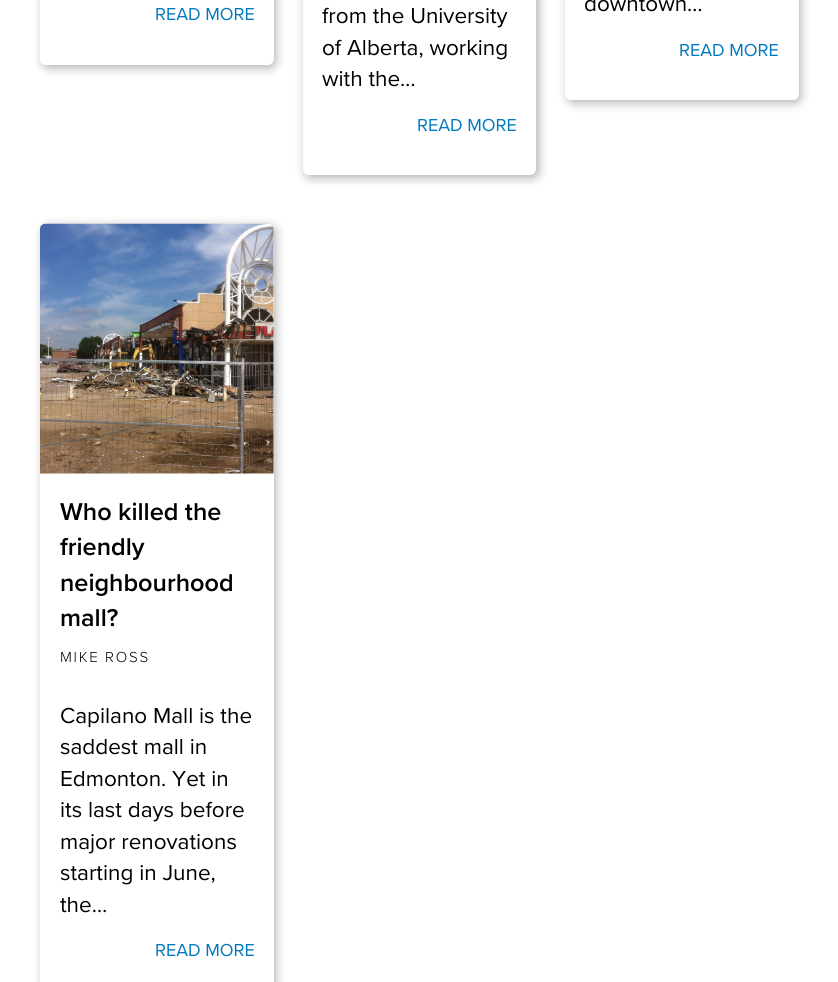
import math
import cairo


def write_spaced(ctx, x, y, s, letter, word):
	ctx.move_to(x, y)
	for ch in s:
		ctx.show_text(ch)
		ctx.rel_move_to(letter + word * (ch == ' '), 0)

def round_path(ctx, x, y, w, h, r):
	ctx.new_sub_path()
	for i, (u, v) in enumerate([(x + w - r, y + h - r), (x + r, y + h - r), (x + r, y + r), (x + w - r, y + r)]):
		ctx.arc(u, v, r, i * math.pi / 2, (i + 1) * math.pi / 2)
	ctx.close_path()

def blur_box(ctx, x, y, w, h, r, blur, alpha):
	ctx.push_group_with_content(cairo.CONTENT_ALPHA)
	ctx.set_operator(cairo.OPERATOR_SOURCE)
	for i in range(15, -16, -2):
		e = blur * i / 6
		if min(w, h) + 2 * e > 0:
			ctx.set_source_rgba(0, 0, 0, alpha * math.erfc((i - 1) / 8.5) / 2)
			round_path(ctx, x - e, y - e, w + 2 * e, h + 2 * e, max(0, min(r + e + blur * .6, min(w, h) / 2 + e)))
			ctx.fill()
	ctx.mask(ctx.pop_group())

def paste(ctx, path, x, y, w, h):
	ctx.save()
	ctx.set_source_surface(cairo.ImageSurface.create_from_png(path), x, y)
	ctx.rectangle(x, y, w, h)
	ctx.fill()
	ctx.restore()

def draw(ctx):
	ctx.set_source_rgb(1, 1, 1)
	ctx.paint()
	ctx.set_source_rgb(0, 0, 0)
	blur_box(ctx, 43, -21, 233, 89, 6, 5, 0.3)
	ctx.set_source_rgb(1, 1, 1)
	round_path(ctx, 40, -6, 234, 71, 6)
	ctx.fill()
	ctx.select_font_face('Proxima Nova')
	ctx.set_font_size(18)
	ctx.set_source_rgb(0, 0.471, 0.753)
	ctx.move_to(155, 20)
	ctx.show_text('READ MORE')
	ctx.set_source_rgb(0, 0, 0)
	blur_box(ctx, 305, -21, 234, 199, 6, 5, 0.3)
	ctx.set_source_rgb(1, 1, 1)
	round_path(ctx, 303, -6, 233, 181, 6)
	ctx.fill()
	ctx.set_font_size(22.5)
	ctx.set_source_rgb(0, 0, 0)
	for x, y, s in [
		(322, 23, 'from the University'),
		(322, 55, 'of Alberta, working'),
		(322, 86, 'with the…'),
	]:
		ctx.move_to(x, y)
		ctx.show_text(s)
	ctx.set_font_size(18)
	ctx.set_source_rgb(0, 0.471, 0.753)
	ctx.move_to(417, 131)
	ctx.show_text('READ MORE')
	ctx.set_source_rgb(0, 0, 0)
	blur_box(ctx, 568, -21, 233, 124, 6, 5, 0.3)
	ctx.set_source_rgb(1, 1, 1)
	round_path(ctx, 565, -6, 234, 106, 6)
	ctx.fill()
	ctx.set_font_size(22.5)
	ctx.set_source_rgb(0, 0, 0)
	ctx.move_to(584, 11)
	ctx.show_text('downtown…')
	ctx.set_font_size(18)
	ctx.set_source_rgb(0, 0.471, 0.753)
	ctx.move_to(679, 56)
	ctx.show_text('READ MORE')
	ctx.set_source_rgb(0, 0, 0)
	blur_box(ctx, 43, 226, 233, 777, 6, 5, 0.3)
	ctx.set_source_rgb(1, 1, 1)
	round_path(ctx, 40, 224, 234, 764, 6)
	ctx.fill()
	paste(ctx, 'media/1.png', 40, 223, 234, 251)
	ctx.select_font_face('Proxima Nova SemiBold')
	ctx.set_font_size(25.25)
	ctx.set_source_rgb(0, 0, 0)
	for x, y, s in [
		(60, 520, 'Who killed the'),
		(60, 555, 'friendly'),
		(60, 591, 'neighbourhood'),
		(60, 626, 'mall?'),
	]:
		ctx.move_to(x, y)
		ctx.show_text(s)
	ctx.select_font_face('Proxima Nova Light')
	ctx.set_font_size(15)
	write_spaced(ctx, 60, 662, 'MIKE ROSS', 1.75, 0)
	ctx.select_font_face('Proxima Nova')
	ctx.set_font_size(22.5)
	for x, y, s in [
		(60, 723, 'Capilano Mall is the'),
		(60, 754, 'saddest mall in'),
		(60, 786, 'Edmonton. Yet in'),
		(60, 817, 'its last days before'),
		(60, 849, 'major renovations'),
		(60, 880, 'starting in June,'),
		(60, 912, 'the…'),
	]:
		ctx.move_to(x, y)
		ctx.show_text(s)
	ctx.set_font_size(18)
	ctx.set_source_rgb(0, 0.471, 0.753)
	ctx.move_to(155, 956)
	ctx.show_text('READ MORE')


surface = cairo.ImageSurface(cairo.FORMAT_RGB24, 838, 982)
ctx = cairo.Context(surface)
options = cairo.FontOptions()
options.set_hint_metrics(cairo.HINT_METRICS_OFF)
options.set_hint_style(cairo.HINT_STYLE_NONE)
ctx.set_font_options(options)
ctx.set_miter_limit(4)
draw(ctx)
surface.write_to_png('image.png')
